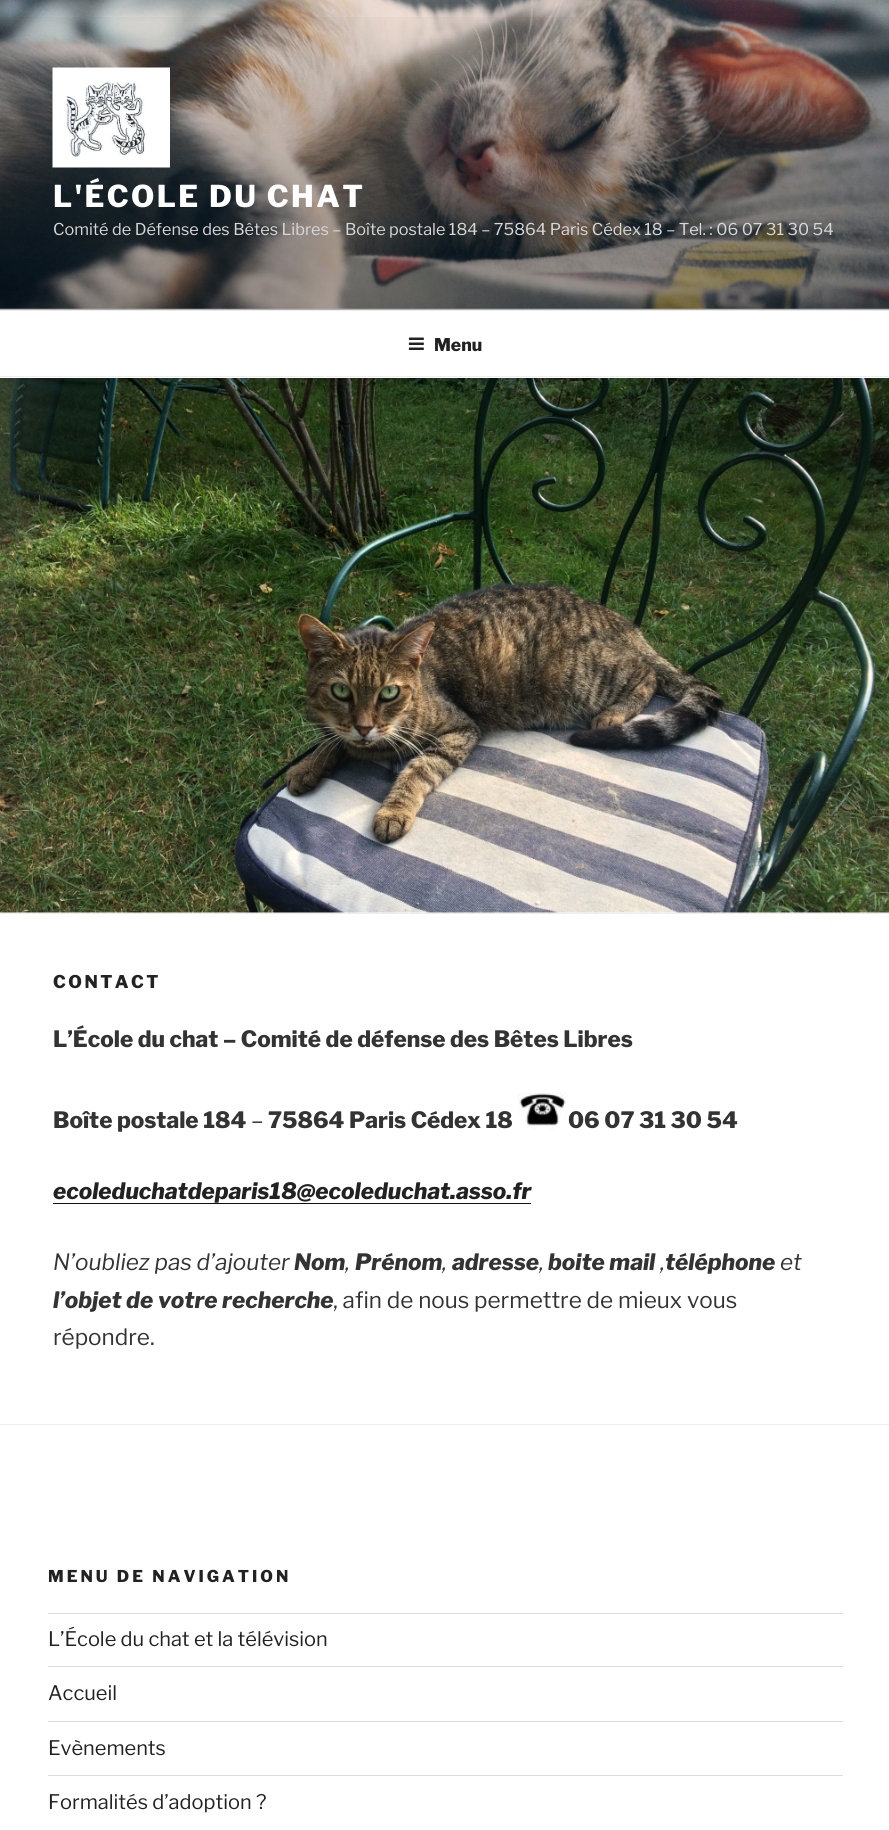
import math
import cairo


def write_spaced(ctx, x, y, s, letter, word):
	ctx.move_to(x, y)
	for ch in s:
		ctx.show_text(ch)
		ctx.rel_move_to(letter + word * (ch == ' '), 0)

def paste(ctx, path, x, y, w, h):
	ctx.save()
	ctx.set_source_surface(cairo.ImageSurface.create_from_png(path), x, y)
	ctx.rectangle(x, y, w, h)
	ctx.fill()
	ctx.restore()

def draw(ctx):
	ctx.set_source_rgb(1, 1, 1)
	ctx.paint()
	ctx.set_source_rgb(0.98, 0.98, 0.98)
	ctx.rectangle(0, 308, 889, 2)
	ctx.fill()
	paste(ctx, 'media/1.png', 0, 0, 889, 309)
	gradient = cairo.LinearGradient(445, 0, 445, 310)
	gradient.add_color_stop_rgba(0, 0, 0, 0, 0)
	gradient.add_color_stop_rgba(0.75, 0, 0, 0, 0.3)
	gradient.add_color_stop_rgba(1, 0, 0, 0, 0.3)
	ctx.set_source(gradient)
	ctx.rectangle(0, 17, 889, 293)
	ctx.fill()
	paste(ctx, 'media/2.png', 52, 67, 118, 101)
	ctx.select_font_face('Libre Franklin ExtraBold')
	ctx.set_font_size(30)
	ctx.set_source_rgb(1, 1, 1)
	write_spaced(ctx, 53, 207, 'L\'ÉCOLE DU CHAT', 2.4, 0)
	ctx.select_font_face('Libre Franklin')
	ctx.set_font_size(16.25)
	ctx.set_source_rgb(0.847, 0.847, 0.847)
	ctx.move_to(53, 235)
	ctx.show_text('Comité de Défense des Bêtes Libres – Boîte postale 184 – 75864 Paris Cédex 18 – Tel. : 06 07 31 30 54')
	ctx.set_source_rgb(0.933, 0.933, 0.933)
	ctx.rectangle(0, 310, 889, 1)
	ctx.fill()
	ctx.rectangle(0, 376, 889, 1)
	ctx.fill()
	paste(ctx, 'media/3.png', 408, 337, 16, 13)
	ctx.select_font_face('Libre Franklin ExtraBold')
	ctx.set_font_size(17.5)
	ctx.set_source_rgb(0.133, 0.133, 0.133)
	ctx.move_to(434, 351)
	ctx.show_text('Menu')
	ctx.set_source_rgb(0.98, 0.98, 0.98)
	ctx.rectangle(0, 912, 889, 1)
	ctx.fill()
	ctx.set_source_rgb(0.933, 0.933, 0.933)
	ctx.rectangle(0, 913, 889, 1)
	ctx.fill()
	paste(ctx, 'media/4.png', 0, 378, 889, 535)
	ctx.set_source_rgb(0.133, 0.133, 0.133)
	write_spaced(ctx, 53, 988, 'CONTACT', 2.5, 0)
	ctx.set_font_size(22.5)
	ctx.set_source_rgb(0.2, 0.2, 0.2)
	ctx.move_to(53, 1047)
	ctx.show_text('L’École du chat – Comité de défense des Bêtes Libres')
	ctx.move_to(53, 1128)
	ctx.show_text('Boîte postale 184')
	ctx.select_font_face('Libre Franklin')
	ctx.move_to(251, 1128)
	ctx.show_text('–')
	ctx.select_font_face('Libre Franklin ExtraBold')
	ctx.move_to(268, 1128)
	ctx.show_text('75864 Paris Cédex 18')
	paste(ctx, 'media/5.png', 517, 1092, 51, 37)
	ctx.move_to(568, 1128)
	ctx.show_text('06 07 31 30 54')
	ctx.select_font_face('Libre Franklin ExtraBold', cairo.FONT_SLANT_ITALIC)
	ctx.set_source_rgb(0.133, 0.133, 0.133)
	ctx.move_to(53, 1199)
	ctx.show_text('ecoleduchatdeparis18@ecoleduchat.asso.fr')
	ctx.set_source_rgb(0.059, 0.059, 0.059)
	ctx.rectangle(53, 1203, 478, 1)
	ctx.fill()
	ctx.select_font_face('Libre Franklin', cairo.FONT_SLANT_ITALIC)
	ctx.set_source_rgb(0.2, 0.2, 0.2)
	ctx.move_to(53, 1270)
	ctx.show_text('N’oubliez pas d’ajouter')
	ctx.select_font_face('Libre Franklin ExtraBold', cairo.FONT_SLANT_ITALIC)
	ctx.move_to(294, 1270)
	ctx.show_text('Nom')
	ctx.select_font_face('Libre Franklin', cairo.FONT_SLANT_ITALIC)
	ctx.move_to(345, 1270)
	ctx.show_text(',')
	ctx.select_font_face('Libre Franklin ExtraBold', cairo.FONT_SLANT_ITALIC)
	ctx.move_to(355, 1270)
	ctx.show_text('Prénom')
	ctx.select_font_face('Libre Franklin', cairo.FONT_SLANT_ITALIC)
	ctx.move_to(442, 1270)
	ctx.show_text(',')
	ctx.select_font_face('Libre Franklin ExtraBold', cairo.FONT_SLANT_ITALIC)
	ctx.move_to(452, 1270)
	ctx.show_text('adresse')
	ctx.select_font_face('Libre Franklin', cairo.FONT_SLANT_ITALIC)
	ctx.move_to(539, 1270)
	ctx.show_text(',')
	ctx.select_font_face('Libre Franklin ExtraBold', cairo.FONT_SLANT_ITALIC)
	ctx.move_to(548, 1270)
	ctx.show_text('boite mail')
	ctx.select_font_face('Libre Franklin', cairo.FONT_SLANT_ITALIC)
	ctx.move_to(660, 1270)
	ctx.show_text(',')
	ctx.select_font_face('Libre Franklin ExtraBold', cairo.FONT_SLANT_ITALIC)
	ctx.move_to(665, 1270)
	ctx.show_text('téléphone')
	ctx.select_font_face('Libre Franklin', cairo.FONT_SLANT_ITALIC)
	ctx.move_to(780, 1270)
	ctx.show_text('et')
	ctx.select_font_face('Libre Franklin ExtraBold', cairo.FONT_SLANT_ITALIC)
	ctx.move_to(53, 1308)
	ctx.show_text('l’objet de votre recherche')
	ctx.select_font_face('Libre Franklin')
	ctx.move_to(333, 1308)
	ctx.show_text(', afin de nous permettre de mieux vous')
	ctx.move_to(53, 1345)
	ctx.show_text('répondre.')
	ctx.set_source_rgb(0.933, 0.933, 0.933)
	ctx.rectangle(0, 1424, 889, 1)
	ctx.fill()
	ctx.select_font_face('Libre Franklin ExtraBold')
	ctx.set_font_size(16.25)
	ctx.set_source_rgb(0.133, 0.133, 0.133)
	write_spaced(ctx, 48, 1582, 'MENU DE NAVIGATION', 3, 0)
	ctx.set_source_rgb(0.867, 0.867, 0.867)
	ctx.rectangle(48, 1613, 795, 1)
	ctx.fill()
	ctx.rectangle(48, 1666, 795, 1)
	ctx.fill()
	ctx.select_font_face('Libre Franklin')
	ctx.set_font_size(20)
	ctx.set_source_rgb(0.133, 0.133, 0.133)
	ctx.move_to(48, 1646)
	ctx.show_text('L’École du chat et la télévision')
	ctx.set_source_rgb(0.867, 0.867, 0.867)
	ctx.rectangle(48, 1721, 795, 1)
	ctx.fill()
	ctx.set_source_rgb(0.133, 0.133, 0.133)
	ctx.move_to(48, 1700)
	ctx.show_text('Accueil')
	ctx.set_source_rgb(0.867, 0.867, 0.867)
	ctx.rectangle(48, 1775, 795, 1)
	ctx.fill()
	ctx.set_source_rgb(0.133, 0.133, 0.133)
	ctx.move_to(48, 1755)
	ctx.show_text('Evènements')
	ctx.move_to(48, 1809)
	ctx.show_text('Formalités d’adoption ?')


surface = cairo.ImageSurface(cairo.FORMAT_RGB24, 889, 1830)
ctx = cairo.Context(surface)
options = cairo.FontOptions()
options.set_hint_metrics(cairo.HINT_METRICS_OFF)
options.set_hint_style(cairo.HINT_STYLE_NONE)
ctx.set_font_options(options)
ctx.set_miter_limit(4)
draw(ctx)
surface.write_to_png('image.png')
